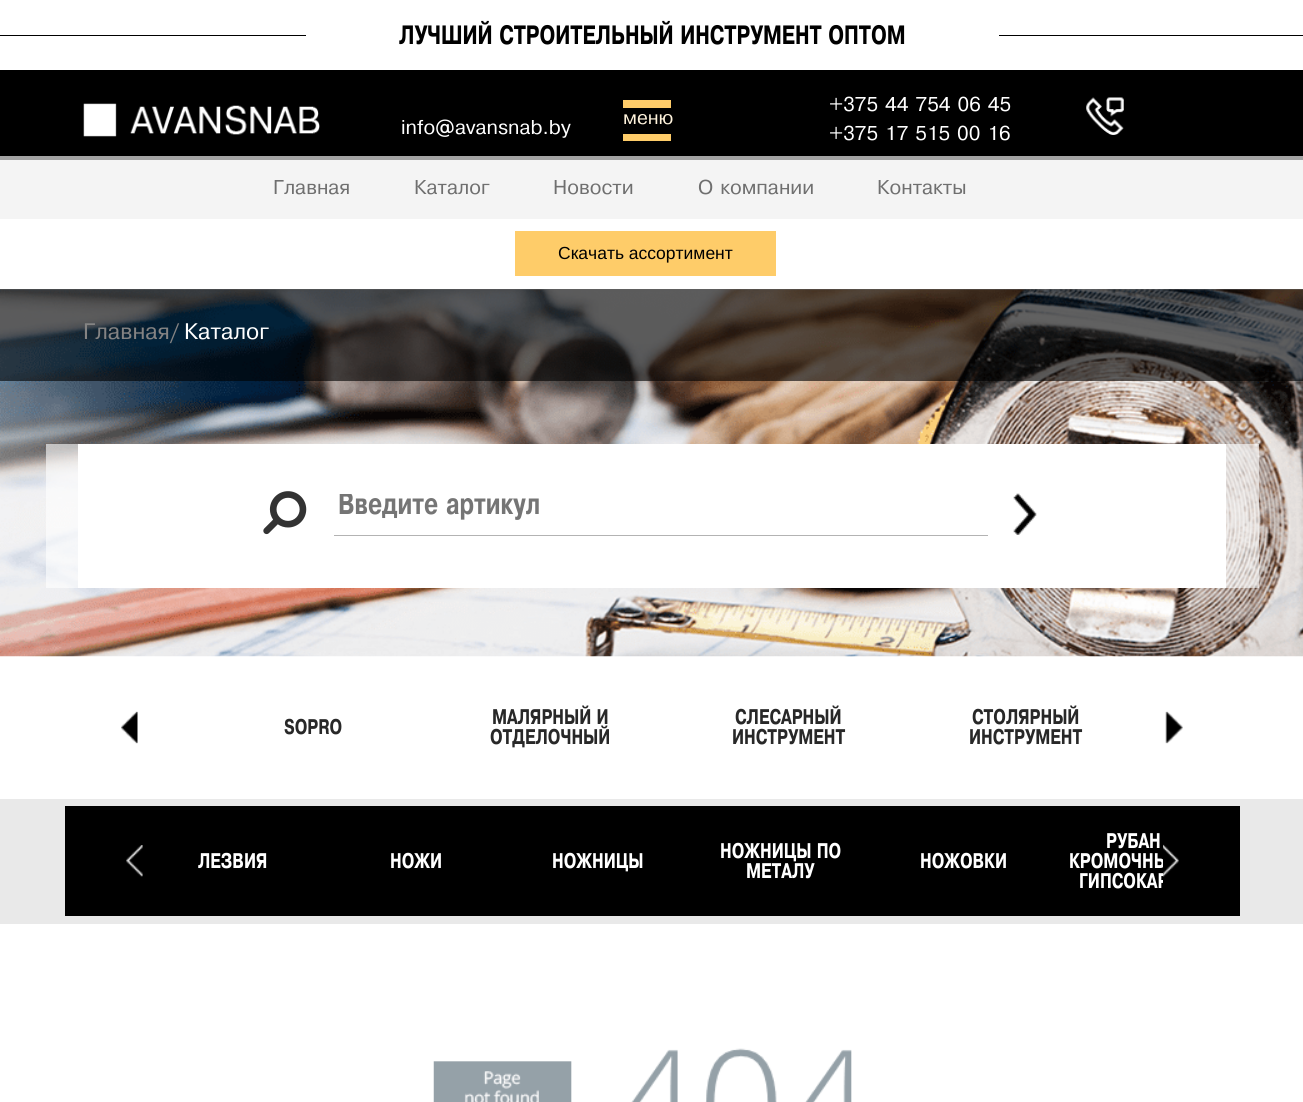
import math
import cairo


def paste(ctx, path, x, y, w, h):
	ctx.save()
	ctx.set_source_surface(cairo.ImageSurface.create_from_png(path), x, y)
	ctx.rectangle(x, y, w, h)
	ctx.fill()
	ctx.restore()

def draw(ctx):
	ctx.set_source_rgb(1, 1, 1)
	ctx.paint()
	ctx.set_source_rgb(0, 0, 0)
	ctx.rectangle(0, 35, 1303, 1)
	ctx.fill()
	ctx.set_source_rgb(1, 1, 1)
	ctx.rectangle(306, 35, 693, 1)
	ctx.fill()
	ctx.select_font_face('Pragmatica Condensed', cairo.FONT_SLANT_NORMAL, cairo.FONT_WEIGHT_BOLD)
	ctx.set_font_size(25)
	ctx.set_source_rgb(0, 0, 0)
	ctx.move_to(399, 44)
	ctx.show_text('ЛУЧШИЙ СТРОИТЕЛЬНЫЙ ИНСТРУМЕНТ ОПТОМ')
	ctx.rectangle(0, 70, 1303, 86)
	ctx.fill()
	paste(ctx, 'media/1.png', 83, 103, 237, 34)
	ctx.select_font_face('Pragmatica')
	ctx.set_font_size(20)
	ctx.set_source_rgb(1, 1, 1)
	ctx.move_to(401, 134)
	ctx.show_text('info@avansnab.by')
	ctx.set_source_rgb(0.996, 0.8, 0.412)
	ctx.rectangle(623, 100, 48, 8)
	ctx.fill()
	ctx.set_font_size(19)
	ctx.set_source_rgb(1, 0.953, 0.863)
	ctx.move_to(623, 124)
	ctx.show_text('меню')
	ctx.set_source_rgb(0.996, 0.8, 0.412)
	ctx.rectangle(623, 134, 48, 7)
	ctx.fill()
	ctx.set_font_size(20)
	ctx.set_source_rgb(1, 1, 1)
	ctx.move_to(829, 111)
	ctx.show_text('+375 44 754 06 45')
	ctx.move_to(829, 140)
	ctx.show_text('+375 17 515 00 16')
	paste(ctx, 'media/2.png', 1086, 97, 38, 38)
	ctx.set_source_rgb(0.957, 0.957, 0.957)
	ctx.rectangle(0, 160, 1303, 59)
	ctx.fill()
	ctx.set_source_rgb(0.639, 0.639, 0.639)
	ctx.rectangle(0, 156, 1303, 4)
	ctx.fill()
	ctx.set_source_rgb(0.435, 0.435, 0.435)
	for x, y, s in [
		(273, 194, 'Главная'),
		(414, 194, 'Каталог'),
		(553, 194, 'Новости'),
		(698, 194, 'О компании'),
		(877, 194, 'Контакты'),
	]:
		ctx.move_to(x, y)
		ctx.show_text(s)
	ctx.set_source_rgb(0.996, 0.8, 0.412)
	ctx.rectangle(515, 231, 261, 45)
	ctx.fill()
	ctx.select_font_face('Liberation Sans')
	ctx.set_font_size(17.5)
	ctx.set_source_rgb(0, 0, 0)
	ctx.move_to(558, 259)
	ctx.show_text('Скачать ассортимент')
	paste(ctx, 'media/3.png', 0, 289, 1303, 368)
	ctx.set_source_rgba(0, 0, 0, 0.62)
	ctx.rectangle(0, 289, 1303, 92)
	ctx.fill()
	ctx.select_font_face('Pragmatica')
	ctx.set_font_size(22.5)
	ctx.set_source_rgb(0.518, 0.514, 0.514)
	ctx.move_to(83, 339)
	ctx.show_text('Главная/')
	ctx.set_source_rgb(1, 1, 1)
	ctx.move_to(184, 339)
	ctx.show_text('Каталог')
	ctx.set_source_rgba(1, 1, 1, 0.6)
	ctx.rectangle(46, 444, 1213, 144)
	ctx.fill()
	ctx.set_source_rgb(1, 1, 1)
	ctx.rectangle(78, 444, 1148, 144)
	ctx.fill()
	paste(ctx, 'media/4.png', 263, 491, 44, 44)
	ctx.set_source_rgb(0.702, 0.702, 0.702)
	ctx.rectangle(334, 535, 654, 1)
	ctx.fill()
	ctx.save()
	ctx.new_path()
	ctx.move_to(335, 494)
	ctx.line_to(986, 494)
	ctx.curve_to(987.5, 494, 989, 495, 989, 496)
	ctx.line_to(989, 534)
	ctx.curve_to(989, 534.5, 987.5, 535, 986, 535)
	ctx.line_to(335, 535)
	ctx.curve_to(333.5, 535, 332.5, 534.5, 332.5, 534)
	ctx.line_to(332.5, 496)
	ctx.curve_to(332.5, 495, 333.5, 494, 335, 494)
	ctx.close_path()
	ctx.clip()
	ctx.select_font_face('Pragmatica Condensed', cairo.FONT_SLANT_NORMAL, cairo.FONT_WEIGHT_BOLD)
	ctx.set_font_size(28.75)
	ctx.set_source_rgb(0.459, 0.459, 0.459)
	ctx.move_to(338, 514)
	ctx.show_text('Введите артикул')
	ctx.restore()
	paste(ctx, 'media/5.png', 1013, 493, 24, 42)
	paste(ctx, 'media/6.png', 121, 711, 17, 33)
	ctx.select_font_face('Pragmatica Condensed', cairo.FONT_SLANT_NORMAL, cairo.FONT_WEIGHT_BOLD)
	ctx.set_font_size(20)
	ctx.set_source_rgb(0.157, 0.157, 0.157)
	for x, y, s in [
		(284, 734, 'SOPRO'),
		(492, 724, 'МАЛЯРНЫЙ И'),
		(490, 744, 'ОТДЕЛОЧНЫЙ'),
		(735, 724, 'СЛЕСАРНЫЙ'),
		(732, 744, 'ИНСТРУМЕНТ'),
		(972, 724, 'СТОЛЯРНЫЙ'),
		(969, 744, 'ИНСТРУМЕНТ'),
	]:
		ctx.move_to(x, y)
		ctx.show_text(s)
	paste(ctx, 'media/7.png', 1165, 711, 18, 33)
	ctx.set_source_rgb(0.914, 0.914, 0.914)
	ctx.rectangle(0, 799, 1303, 125)
	ctx.fill()
	ctx.set_source_rgb(0, 0, 0)
	ctx.rectangle(65, 806, 1098, 110)
	ctx.fill()
	paste(ctx, 'media/8.png', 126, 845, 17, 32)
	ctx.set_source_rgb(1, 1, 1)
	for x, y, s in [
		(198, 868, 'ЛЕЗВИЯ'),
		(390, 868, 'НОЖИ'),
		(552, 868, 'НОЖНИЦЫ'),
		(720, 858, 'НОЖНИЦЫ ПО'),
		(746, 878, 'МЕТАЛУ'),
		(920, 868, 'НОЖОВКИ'),
		(1106, 848, 'РУБАН'),
		(1069, 868, 'КРОМОЧНЫ'),
		(1079, 888, 'ГИПСОКАР'),
	]:
		ctx.move_to(x, y)
		ctx.show_text(s)
	ctx.set_source_rgb(0, 0, 0)
	ctx.rectangle(1163, 806, 77, 110)
	ctx.fill()
	paste(ctx, 'media/9.png', 1163, 844, 16, 33)
	paste(ctx, 'media/10.png', 433, 1048, 419, 54)


surface = cairo.ImageSurface(cairo.FORMAT_RGB24, 1303, 1102)
ctx = cairo.Context(surface)
options = cairo.FontOptions()
options.set_hint_metrics(cairo.HINT_METRICS_OFF)
options.set_hint_style(cairo.HINT_STYLE_NONE)
ctx.set_font_options(options)
ctx.set_miter_limit(4)
draw(ctx)
surface.write_to_png('image.png')
